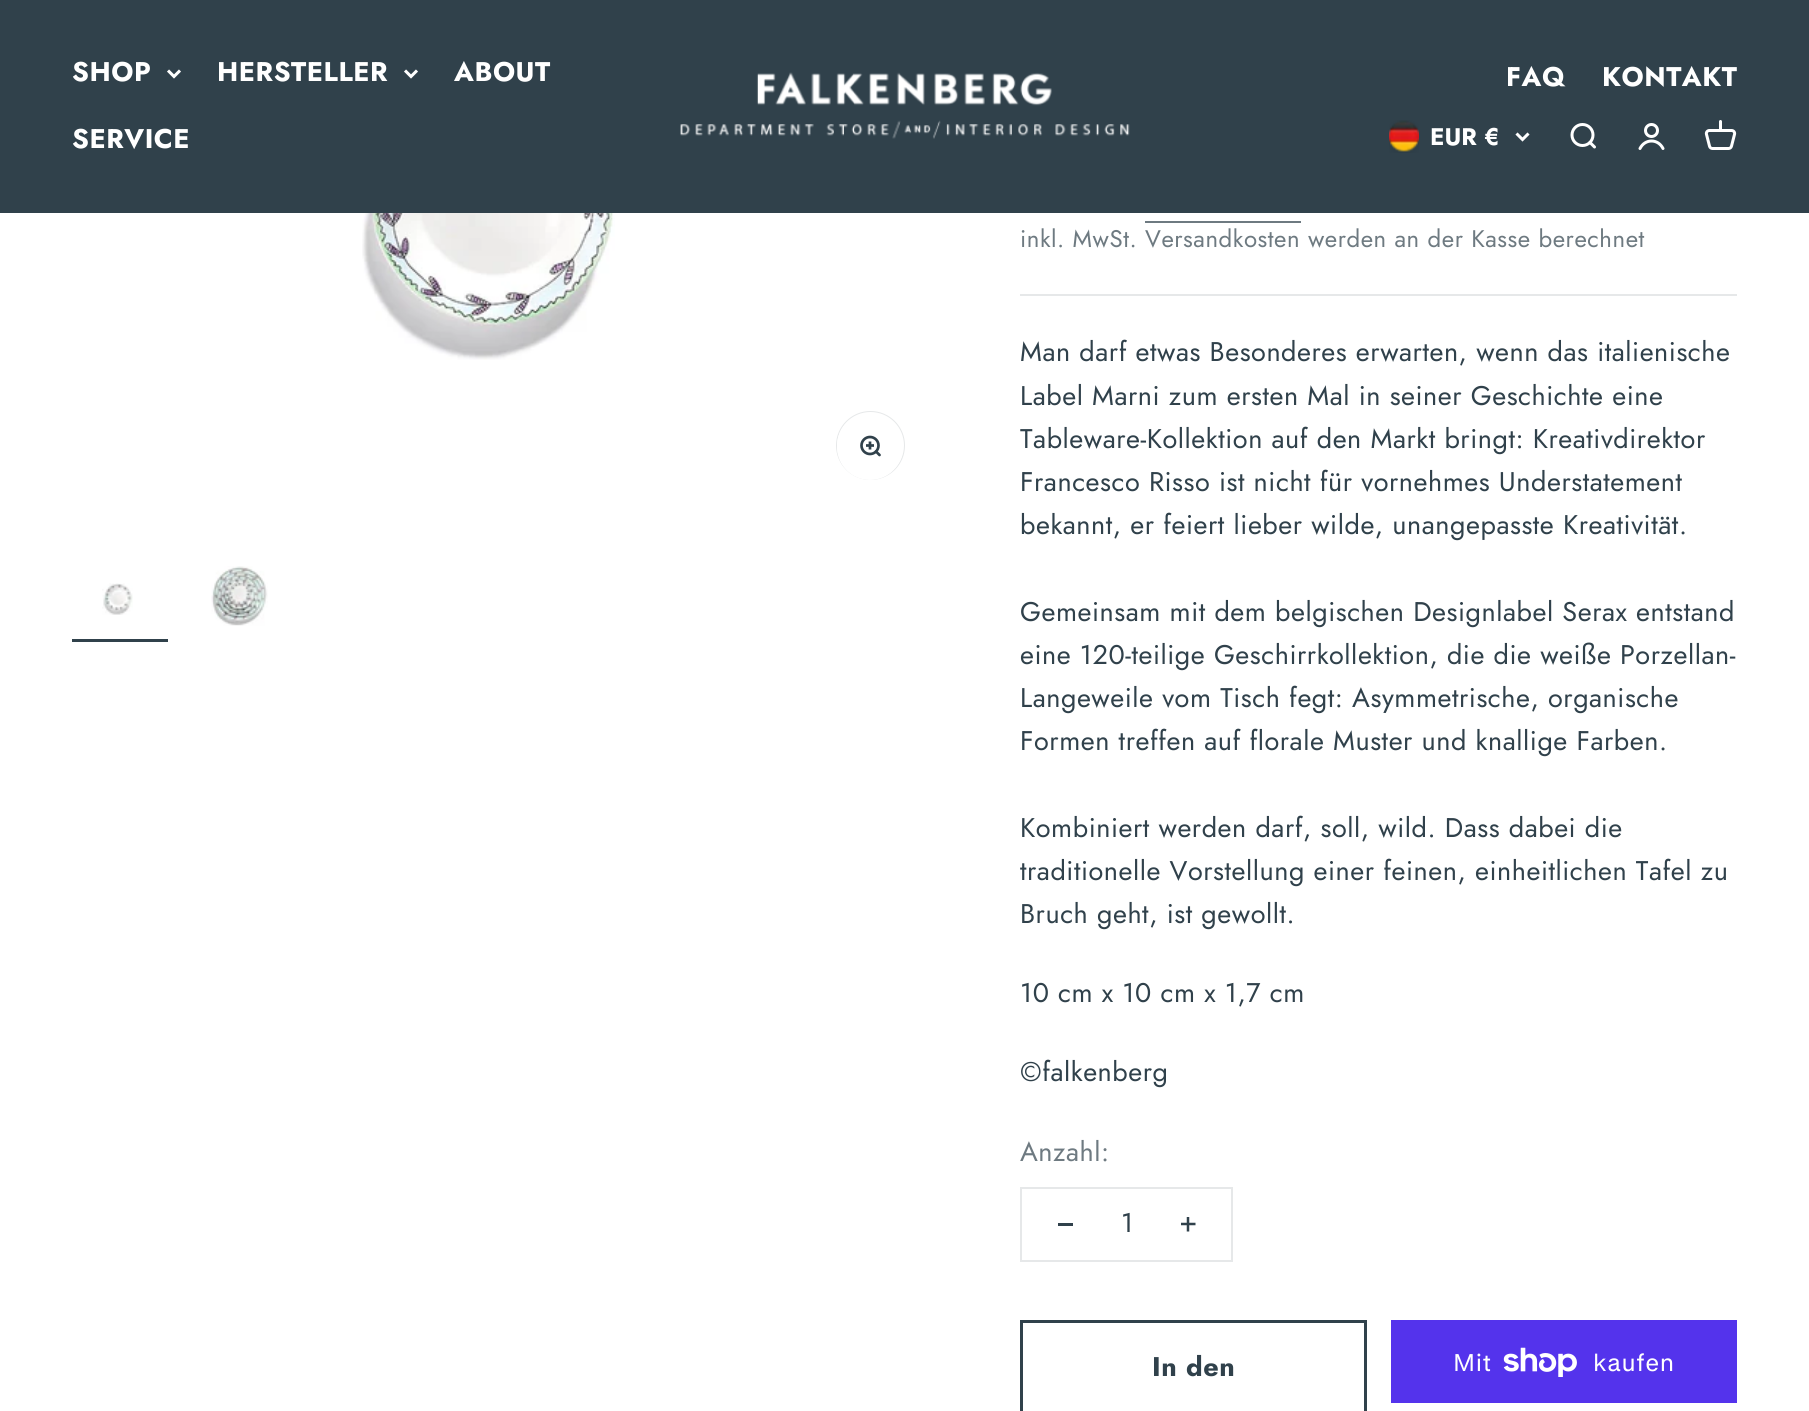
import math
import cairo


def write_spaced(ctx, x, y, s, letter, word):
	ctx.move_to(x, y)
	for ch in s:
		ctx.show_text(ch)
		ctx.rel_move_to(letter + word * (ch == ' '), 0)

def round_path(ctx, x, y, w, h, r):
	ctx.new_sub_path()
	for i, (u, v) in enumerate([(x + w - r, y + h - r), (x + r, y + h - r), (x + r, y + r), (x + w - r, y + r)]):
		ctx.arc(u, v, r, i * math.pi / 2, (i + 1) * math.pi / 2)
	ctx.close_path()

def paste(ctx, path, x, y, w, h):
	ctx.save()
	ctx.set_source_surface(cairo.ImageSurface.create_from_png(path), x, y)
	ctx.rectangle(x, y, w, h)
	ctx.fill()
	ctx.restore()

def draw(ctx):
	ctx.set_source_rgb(1, 1, 1)
	ctx.paint()
	ctx.set_source_rgb(0.188, 0.255, 0.294)
	ctx.rectangle(0, 0, 1809, 213)
	ctx.fill()
	ctx.select_font_face('Jost', cairo.FONT_SLANT_NORMAL, cairo.FONT_WEIGHT_BOLD)
	ctx.set_font_size(27)
	ctx.set_source_rgb(1, 1, 1)
	write_spaced(ctx, 72, 81, 'SHOP', 0.55, 0)
	ctx.new_path()
	ctx.move_to(168, 70.5)
	ctx.line_to(174, 76.5)
	ctx.line_to(180, 70.5)
	ctx.set_line_width(3)
	ctx.stroke()
	write_spaced(ctx, 217, 81, 'HERSTELLER', 0.55, 0)
	ctx.new_path()
	ctx.move_to(405, 70.5)
	ctx.line_to(411, 76.5)
	ctx.line_to(417, 70.5)
	ctx.stroke()
	write_spaced(ctx, 454, 81, 'ABOUT', 0.55, 0)
	write_spaced(ctx, 72, 148, 'SERVICE', 0.55, 0)
	paste(ctx, 'media/1.png', 680, 72, 450, 67)
	write_spaced(ctx, 1506, 86, 'FAQ', 0.55, 0)
	write_spaced(ctx, 1602, 86, 'KONTAKT', 0.55, 0)
	paste(ctx, 'media/2.png', 1389, 120, 30, 33)
	ctx.set_font_size(24)
	ctx.move_to(1430, 145)
	ctx.show_text('EUR €')
	ctx.new_path()
	ctx.move_to(1516.5, 133.5)
	ctx.line_to(1522.5, 139.5)
	ctx.line_to(1528.5, 133.5)
	ctx.stroke()
	ctx.arc(1582.5, 135, 10.5, 0, 2 * math.pi)
	ctx.stroke()
	ctx.new_path()
	ctx.move_to(1590, 142.5)
	ctx.line_to(1594.5, 147)
	ctx.set_line_cap(cairo.LINE_CAP_ROUND)
	ctx.set_line_join(cairo.LINE_JOIN_ROUND)
	ctx.stroke()
	ctx.arc(1651.5, 130.5, 6, 0, 2 * math.pi)
	ctx.set_line_cap(cairo.LINE_CAP_BUTT)
	ctx.set_line_join(cairo.LINE_JOIN_MITER)
	ctx.stroke()
	ctx.new_path()
	ctx.move_to(1640, 148.5)
	ctx.curve_to(1645, 138.5, 1658, 138.5, 1663, 148.5)
	ctx.set_line_cap(cairo.LINE_CAP_ROUND)
	ctx.stroke()
	paste(ctx, 'media/3.png', 1704, 120, 33, 30)
	paste(ctx, 'media/4.png', 362, 213, 253, 147)
	ctx.arc(870.5, 445.5, 34, 0, 2 * math.pi)
	ctx.set_source_rgb(0.902, 0.91, 0.914)
	ctx.set_line_width(1)
	ctx.set_line_cap(cairo.LINE_CAP_BUTT)
	ctx.stroke()
	ctx.set_source_rgb(1, 1, 1)
	round_path(ctx, 837, 413, 66, 67, 33)
	ctx.fill()
	ctx.arc(870, 445.5, 8.5, 0, 2 * math.pi)
	ctx.set_source_rgb(0.188, 0.255, 0.294)
	ctx.set_line_width(2.7)
	ctx.stroke()
	ctx.new_path()
	ctx.move_to(876, 451.5)
	ctx.line_to(879.5, 455)
	ctx.set_line_cap(cairo.LINE_CAP_ROUND)
	ctx.set_line_join(cairo.LINE_JOIN_ROUND)
	ctx.stroke()
	ctx.new_path()
	ctx.move_to(870, 441.5)
	ctx.line_to(870, 449.5)
	ctx.move_to(866, 445.5)
	ctx.line_to(874, 445.5)
	ctx.set_line_cap(cairo.LINE_CAP_BUTT)
	ctx.set_line_join(cairo.LINE_JOIN_MITER)
	ctx.stroke()
	paste(ctx, 'media/5.png', 102, 583, 31, 32)
	ctx.rectangle(72, 639, 96, 3)
	ctx.fill()
	paste(ctx, 'media/6.png', 211, 566, 57, 60)
	ctx.set_source_rgb(0.431, 0.478, 0.506)
	ctx.rectangle(1145, 221, 156, 2)
	ctx.fill()
	ctx.select_font_face('Jost')
	write_spaced(ctx, 1020, 247, 'inkl. MwSt. Versandkosten werden an der Kasse berechnet', 0.55, 0)
	ctx.set_source_rgb(0.902, 0.91, 0.914)
	ctx.rectangle(1020, 294, 717, 2)
	ctx.fill()
	ctx.set_font_size(27)
	ctx.set_source_rgb(0.188, 0.255, 0.294)
	for x, y, s in [
		(1020, 361, 'Man darf etwas Besonderes erwarten, wenn das italienische'),
		(1020, 405, 'Label Marni zum ersten Mal in seiner Geschichte eine'),
		(1020, 448, 'Tableware-Kollektion auf den Markt bringt: Kreativdirektor'),
		(1020, 491, 'Francesco Risso ist nicht für vornehmes Understatement'),
		(1020, 534, 'bekannt, er feiert lieber wilde, unangepasste Kreativität.'),
		(1020, 621, 'Gemeinsam mit dem belgischen Designlabel Serax entstand'),
		(1020, 664, 'eine 120-teilige Geschirrkollektion, die die weiße Porzellan-'),
		(1020, 707, 'Langeweile vom Tisch fegt: Asymmetrische, organische'),
		(1020, 750, 'Formen treffen auf florale Muster und knallige Farben.'),
		(1020, 837, 'Kombiniert werden darf, soll, wild. Dass dabei die'),
		(1020, 880, 'traditionelle Vorstellung einer feinen, einheitlichen Tafel zu'),
		(1020, 923, 'Bruch geht, ist gewollt.'),
		(1020, 1002, '10 cm x 10 cm x 1,7 cm'),
		(1020, 1081, '©falkenberg'),
	]:
		write_spaced(ctx, x, y, s, 0.55, 0)
	ctx.set_source_rgb(0.431, 0.478, 0.506)
	write_spaced(ctx, 1020, 1161, 'Anzahl:', 0.55, 0)
	ctx.rectangle(1021, 1188, 211, 73)
	ctx.set_source_rgb(0.902, 0.91, 0.914)
	ctx.set_line_width(2)
	ctx.stroke()
	ctx.set_source_rgb(0.188, 0.255, 0.294)
	ctx.rectangle(1058, 1223, 15, 3)
	ctx.fill()
	ctx.move_to(1121, 1232)
	ctx.show_text('1')
	ctx.save()
	ctx.rectangle(1181, 1217, 15, 15)
	ctx.clip()
	ctx.new_path()
	ctx.move_to(1188, 1216.5)
	ctx.line_to(1188, 1231.5)
	ctx.move_to(1180.5, 1224)
	ctx.line_to(1195.5, 1224)
	ctx.set_line_width(2.5)
	ctx.stroke()
	ctx.restore()
	ctx.rectangle(1021.5, 1321.5, 344, 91)
	ctx.set_line_width(3)
	ctx.stroke()
	ctx.select_font_face('Jost', cairo.FONT_SLANT_NORMAL, cairo.FONT_WEIGHT_BOLD)
	write_spaced(ctx, 1152, 1376, 'In den', 0.55, 0)
	ctx.set_source_rgb(0.329, 0.2, 0.922)
	ctx.rectangle(1391, 1320, 346, 83)
	ctx.fill()
	ctx.select_font_face('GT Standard')
	ctx.set_font_size(24)
	ctx.set_source_rgb(1, 1, 1)
	write_spaced(ctx, 1453, 1371, 'Mit', 0.55, 0)
	paste(ctx, 'media/7.png', 1503, 1347, 74, 30)
	write_spaced(ctx, 1593, 1371, 'kaufen', 0.55, 0)


surface = cairo.ImageSurface(cairo.FORMAT_RGB24, 1809, 1411)
ctx = cairo.Context(surface)
options = cairo.FontOptions()
options.set_hint_metrics(cairo.HINT_METRICS_OFF)
options.set_hint_style(cairo.HINT_STYLE_NONE)
ctx.set_font_options(options)
ctx.set_miter_limit(4)
draw(ctx)
surface.write_to_png('image.png')
